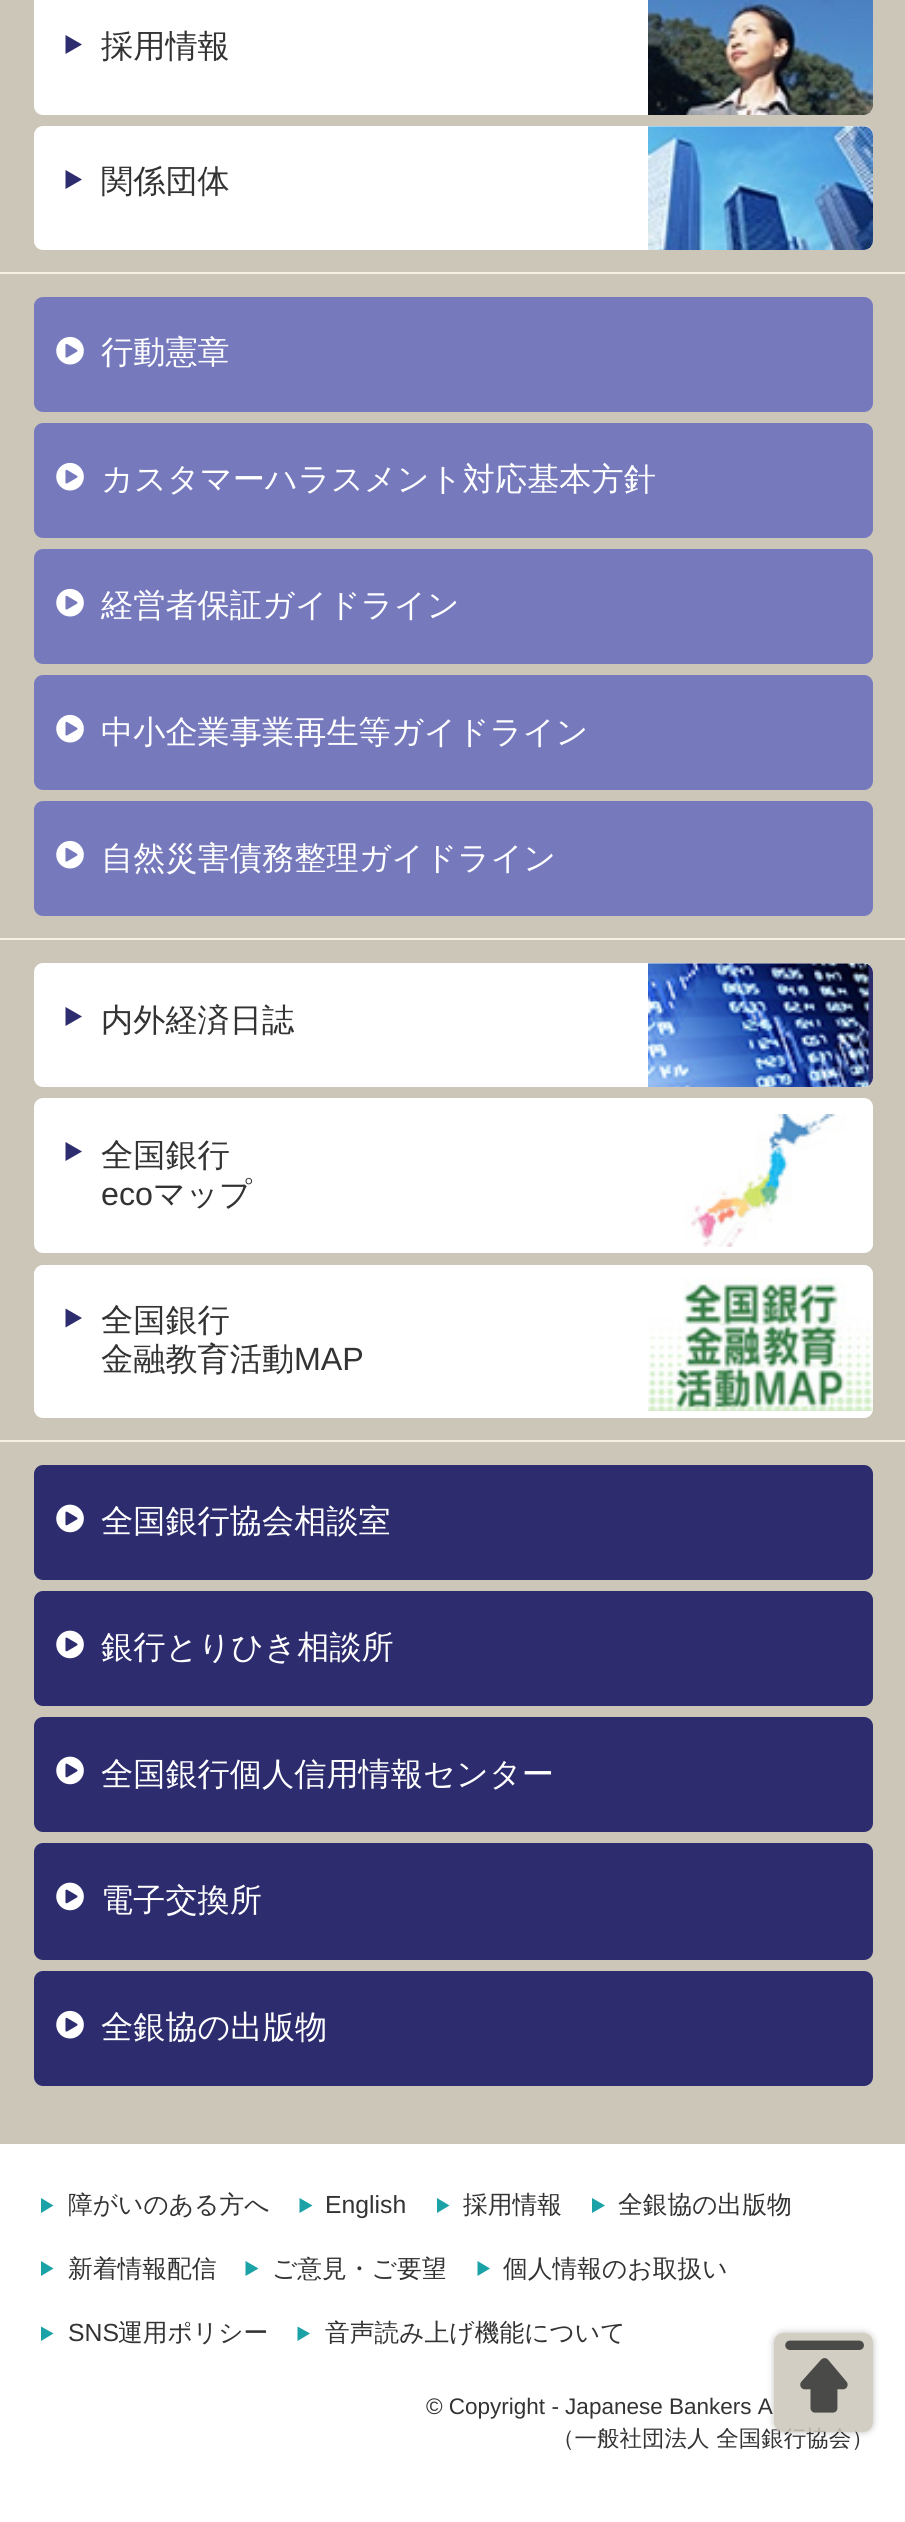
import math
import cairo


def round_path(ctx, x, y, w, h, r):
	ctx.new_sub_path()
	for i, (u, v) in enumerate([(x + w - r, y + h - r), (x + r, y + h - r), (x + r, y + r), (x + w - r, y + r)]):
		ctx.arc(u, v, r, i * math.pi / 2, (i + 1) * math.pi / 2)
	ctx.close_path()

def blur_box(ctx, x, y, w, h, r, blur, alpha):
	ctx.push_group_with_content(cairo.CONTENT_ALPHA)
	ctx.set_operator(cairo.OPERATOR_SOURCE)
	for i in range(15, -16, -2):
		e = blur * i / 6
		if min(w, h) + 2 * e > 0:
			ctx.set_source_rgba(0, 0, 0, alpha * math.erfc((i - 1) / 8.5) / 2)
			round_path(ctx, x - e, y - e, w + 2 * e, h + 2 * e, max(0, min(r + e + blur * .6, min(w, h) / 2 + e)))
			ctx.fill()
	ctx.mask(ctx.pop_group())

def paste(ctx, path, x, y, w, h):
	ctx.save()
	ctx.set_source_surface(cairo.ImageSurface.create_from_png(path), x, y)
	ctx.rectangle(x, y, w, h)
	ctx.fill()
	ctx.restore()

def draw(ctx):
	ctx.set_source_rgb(0.796, 0.776, 0.722)
	ctx.paint()
	ctx.set_source_rgb(1, 1, 1)
	round_path(ctx, 34, -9, 839, 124, 9)
	ctx.fill()
	ctx.set_source_rgb(0.173, 0.173, 0.431)
	ctx.new_path()
	ctx.move_to(65.5, 54)
	ctx.line_to(65.5, 35)
	ctx.line_to(82, 44.5)
	ctx.close_path()
	ctx.fill()
	ctx.select_font_face('WenQuanYi Zen Hei Medium')
	ctx.set_font_size(32.2)
	ctx.set_source_rgb(0.2, 0.2, 0.2)
	ctx.move_to(101, 57)
	ctx.show_text('採用情報')
	paste(ctx, 'media/1.png', 648, 0, 225, 115)
	ctx.set_source_rgb(1, 1, 1)
	round_path(ctx, 34, 126, 839, 124, 9)
	ctx.fill()
	ctx.set_source_rgb(0.173, 0.173, 0.431)
	ctx.new_path()
	ctx.move_to(65.5, 189)
	ctx.line_to(65.5, 170)
	ctx.line_to(82, 179.5)
	ctx.close_path()
	ctx.fill()
	ctx.set_source_rgb(0.2, 0.2, 0.2)
	ctx.move_to(101, 192)
	ctx.show_text('関係団体')
	paste(ctx, 'media/2.png', 648, 126, 225, 124)
	ctx.set_source_rgb(0.969, 0.945, 0.882)
	ctx.rectangle(0, 272, 905, 2)
	ctx.fill()
	ctx.set_source_rgb(0.463, 0.478, 0.741)
	round_path(ctx, 34, 297, 839, 115, 9)
	ctx.fill()
	paste(ctx, 'media/3.png', 56, 336, 28, 29)
	ctx.set_source_rgb(1, 1, 1)
	ctx.move_to(101, 363)
	ctx.show_text('行動憲章')
	ctx.set_source_rgb(0.463, 0.478, 0.741)
	round_path(ctx, 34, 423, 839, 115, 9)
	ctx.fill()
	paste(ctx, 'media/3.png', 56, 462, 28, 29)
	ctx.set_source_rgb(1, 1, 1)
	ctx.move_to(101, 490)
	ctx.show_text('カスタマーハラスメント対応基本方針')
	ctx.set_source_rgb(0.463, 0.478, 0.741)
	round_path(ctx, 34, 549, 839, 115, 9)
	ctx.fill()
	paste(ctx, 'media/3.png', 56, 588, 28, 29)
	ctx.set_source_rgb(1, 1, 1)
	ctx.move_to(101, 616)
	ctx.show_text('経営者保証ガイドライン')
	ctx.set_source_rgb(0.463, 0.478, 0.741)
	round_path(ctx, 34, 675, 839, 115, 9)
	ctx.fill()
	paste(ctx, 'media/3.png', 56, 714, 28, 29)
	ctx.set_source_rgb(1, 1, 1)
	ctx.move_to(101, 743)
	ctx.show_text('中小企業事業再生等ガイドライン')
	ctx.set_source_rgb(0.463, 0.478, 0.741)
	round_path(ctx, 34, 801, 839, 115, 9)
	ctx.fill()
	paste(ctx, 'media/3.png', 56, 840, 28, 29)
	ctx.set_source_rgb(1, 1, 1)
	ctx.move_to(101, 869)
	ctx.show_text('自然災害債務整理ガイドライン')
	ctx.set_source_rgb(0.969, 0.945, 0.882)
	ctx.rectangle(0, 938, 905, 2)
	ctx.fill()
	ctx.set_source_rgb(1, 1, 1)
	round_path(ctx, 34, 963, 839, 124, 9)
	ctx.fill()
	ctx.set_source_rgb(0.173, 0.173, 0.431)
	ctx.new_path()
	ctx.move_to(65.5, 1026)
	ctx.line_to(65.5, 1007)
	ctx.line_to(82, 1016.5)
	ctx.close_path()
	ctx.fill()
	ctx.set_source_rgb(0.2, 0.2, 0.2)
	ctx.move_to(101, 1031)
	ctx.show_text('内外経済日誌')
	paste(ctx, 'media/4.png', 648, 963, 225, 124)
	ctx.set_source_rgb(1, 1, 1)
	round_path(ctx, 34, 1098, 839, 155, 9)
	ctx.fill()
	ctx.set_source_rgb(0.173, 0.173, 0.431)
	ctx.new_path()
	ctx.move_to(65.5, 1161)
	ctx.line_to(65.5, 1142)
	ctx.line_to(82, 1151.5)
	ctx.close_path()
	ctx.fill()
	ctx.set_source_rgb(0.2, 0.2, 0.2)
	ctx.move_to(101, 1166)
	ctx.show_text('全国銀行')
	paste(ctx, 'media/5.png', 685, 1114, 188, 133)
	ctx.select_font_face('Liberation Sans')
	ctx.move_to(101, 1205)
	ctx.show_text('eco')
	ctx.select_font_face('WenQuanYi Zen Hei Medium')
	ctx.move_to(153, 1205)
	ctx.show_text('マップ')
	ctx.set_source_rgb(1, 1, 1)
	round_path(ctx, 34, 1265, 839, 153, 9)
	ctx.fill()
	ctx.set_source_rgb(0.173, 0.173, 0.431)
	ctx.new_path()
	ctx.move_to(65.5, 1327.5)
	ctx.line_to(65.5, 1308.5)
	ctx.line_to(82, 1318)
	ctx.close_path()
	ctx.fill()
	ctx.set_source_rgb(0.2, 0.2, 0.2)
	ctx.move_to(101, 1331)
	ctx.show_text('全国銀行')
	paste(ctx, 'media/6.png', 648, 1278, 225, 133)
	ctx.move_to(101, 1370)
	ctx.show_text('金融教育活動')
	ctx.select_font_face('Liberation Sans')
	ctx.move_to(294, 1370)
	ctx.show_text('MAP')
	ctx.set_source_rgb(0.969, 0.945, 0.882)
	ctx.rectangle(0, 1440, 905, 2)
	ctx.fill()
	ctx.set_source_rgb(0.173, 0.173, 0.431)
	round_path(ctx, 34, 1465, 839, 115, 9)
	ctx.fill()
	paste(ctx, 'media/7.png', 56, 1504, 28, 29)
	ctx.select_font_face('WenQuanYi Zen Hei Medium')
	ctx.set_source_rgb(1, 1, 1)
	ctx.move_to(101, 1532)
	ctx.show_text('全国銀行協会相談室')
	ctx.set_source_rgb(0.173, 0.173, 0.431)
	round_path(ctx, 34, 1591, 839, 115, 9)
	ctx.fill()
	paste(ctx, 'media/7.png', 56, 1630, 28, 29)
	ctx.set_source_rgb(1, 1, 1)
	ctx.move_to(101, 1658)
	ctx.show_text('銀行とりひき相談所')
	ctx.set_source_rgb(0.173, 0.173, 0.431)
	round_path(ctx, 34, 1717, 839, 115, 9)
	ctx.fill()
	paste(ctx, 'media/7.png', 56, 1756, 28, 29)
	ctx.set_source_rgb(1, 1, 1)
	ctx.move_to(101, 1785)
	ctx.show_text('全国銀行個人信用情報センター')
	ctx.set_source_rgb(0.173, 0.173, 0.431)
	round_path(ctx, 34, 1843, 839, 117, 9)
	ctx.fill()
	paste(ctx, 'media/7.png', 56, 1882, 28, 29)
	ctx.set_source_rgb(1, 1, 1)
	ctx.move_to(101, 1911)
	ctx.show_text('電子交換所')
	ctx.set_source_rgb(0.173, 0.173, 0.431)
	round_path(ctx, 34, 1971, 839, 115, 9)
	ctx.fill()
	paste(ctx, 'media/8.png', 56, 2010, 28, 29)
	ctx.set_source_rgb(1, 1, 1)
	ctx.move_to(101, 2038)
	ctx.show_text('全銀協の出版物')
	ctx.rectangle(0, 2144, 905, 378)
	ctx.fill()
	ctx.set_source_rgb(0.102, 0.635, 0.655)
	ctx.new_path()
	ctx.move_to(41, 2213)
	ctx.line_to(41, 2198)
	ctx.line_to(53.5, 2205.5)
	ctx.close_path()
	ctx.fill()
	ctx.set_font_size(24.75)
	ctx.set_source_rgb(0.2, 0.2, 0.2)
	ctx.move_to(68, 2213)
	ctx.show_text('障がいのある方へ')
	ctx.set_source_rgb(0.102, 0.635, 0.655)
	ctx.new_path()
	ctx.move_to(299.5, 2213)
	ctx.line_to(299.5, 2198)
	ctx.line_to(312.5, 2205.5)
	ctx.close_path()
	ctx.fill()
	ctx.select_font_face('Liberation Sans')
	ctx.set_source_rgb(0.2, 0.2, 0.2)
	ctx.move_to(325, 2213)
	ctx.show_text('English')
	ctx.set_source_rgb(0.102, 0.635, 0.655)
	ctx.new_path()
	ctx.move_to(437, 2213)
	ctx.line_to(437, 2198)
	ctx.line_to(449.5, 2205.5)
	ctx.close_path()
	ctx.fill()
	ctx.select_font_face('WenQuanYi Zen Hei Medium')
	ctx.set_source_rgb(0.2, 0.2, 0.2)
	ctx.move_to(463, 2213)
	ctx.show_text('採用情報')
	ctx.set_source_rgb(0.102, 0.635, 0.655)
	ctx.new_path()
	ctx.move_to(592, 2213)
	ctx.line_to(592, 2198)
	ctx.line_to(605, 2205.5)
	ctx.close_path()
	ctx.fill()
	ctx.set_source_rgb(0.2, 0.2, 0.2)
	ctx.move_to(618, 2213)
	ctx.show_text('全銀協の出版物')
	ctx.set_source_rgb(0.102, 0.635, 0.655)
	ctx.new_path()
	ctx.move_to(41, 2276)
	ctx.line_to(41, 2261)
	ctx.line_to(53.5, 2268.5)
	ctx.close_path()
	ctx.fill()
	ctx.set_source_rgb(0.2, 0.2, 0.2)
	ctx.move_to(68, 2277)
	ctx.show_text('新着情報配信')
	ctx.set_source_rgb(0.102, 0.635, 0.655)
	ctx.new_path()
	ctx.move_to(245.5, 2276)
	ctx.line_to(245.5, 2261)
	ctx.line_to(258.5, 2268.5)
	ctx.close_path()
	ctx.fill()
	ctx.set_source_rgb(0.2, 0.2, 0.2)
	ctx.move_to(272, 2277)
	ctx.show_text('ご意見・ご要望')
	ctx.set_source_rgb(0.102, 0.635, 0.655)
	ctx.new_path()
	ctx.move_to(477.5, 2276)
	ctx.line_to(477.5, 2261)
	ctx.line_to(490, 2268.5)
	ctx.close_path()
	ctx.fill()
	ctx.set_source_rgb(0.2, 0.2, 0.2)
	ctx.move_to(503, 2277)
	ctx.show_text('個人情報のお取扱い')
	ctx.set_source_rgb(0.102, 0.635, 0.655)
	ctx.new_path()
	ctx.move_to(41, 2341)
	ctx.line_to(41, 2326.5)
	ctx.line_to(53.5, 2333.5)
	ctx.close_path()
	ctx.fill()
	ctx.select_font_face('Liberation Sans')
	ctx.set_source_rgb(0.2, 0.2, 0.2)
	ctx.move_to(68, 2341)
	ctx.show_text('SNS')
	ctx.select_font_face('WenQuanYi Zen Hei Medium')
	ctx.move_to(118, 2341)
	ctx.show_text('運用ポリシー')
	ctx.set_source_rgb(0.102, 0.635, 0.655)
	ctx.new_path()
	ctx.move_to(297.5, 2341)
	ctx.line_to(297.5, 2326.5)
	ctx.line_to(310, 2333.5)
	ctx.close_path()
	ctx.fill()
	ctx.set_source_rgb(0.2, 0.2, 0.2)
	ctx.move_to(325, 2341)
	ctx.show_text('音声読み上げ機能について')
	ctx.select_font_face('Liberation Sans')
	ctx.set_font_size(22.5)
	ctx.move_to(426, 2414)
	ctx.show_text('© Copyright - Japanese Bankers A')
	ctx.select_font_face('WenQuanYi Zen Hei Medium')
	ctx.move_to(552, 2446)
	ctx.show_text('（一般社団法人 全国銀行協会）')
	ctx.save()
	ctx.set_fill_rule(cairo.FILL_RULE_EVEN_ODD)
	ctx.new_path()
	ctx.move_to(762, 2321)
	ctx.line_to(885, 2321)
	ctx.line_to(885, 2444)
	ctx.line_to(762, 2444)
	ctx.close_path()
	ctx.move_to(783, 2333)
	ctx.line_to(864, 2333)
	ctx.curve_to(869, 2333, 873, 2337, 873, 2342)
	ctx.line_to(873, 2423)
	ctx.curve_to(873, 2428, 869, 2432, 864, 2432)
	ctx.line_to(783, 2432)
	ctx.curve_to(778, 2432, 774, 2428, 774, 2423)
	ctx.line_to(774, 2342)
	ctx.curve_to(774, 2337, 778, 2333, 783, 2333)
	ctx.close_path()
	ctx.clip()
	ctx.set_source_rgb(0, 0, 0)
	blur_box(ctx, 774, 2333, 99, 99, 9, 3.5, 0.26)
	ctx.restore()
	ctx.set_source_rgba(0.796, 0.776, 0.722, 0.85)
	round_path(ctx, 774, 2333, 99, 99, 9)
	ctx.fill()
	paste(ctx, 'media/9.png', 785, 2340, 79, 73)


surface = cairo.ImageSurface(cairo.FORMAT_RGB24, 905, 2522)
ctx = cairo.Context(surface)
options = cairo.FontOptions()
options.set_hint_metrics(cairo.HINT_METRICS_OFF)
options.set_hint_style(cairo.HINT_STYLE_NONE)
ctx.set_font_options(options)
ctx.set_miter_limit(4)
draw(ctx)
surface.write_to_png('image.png')
